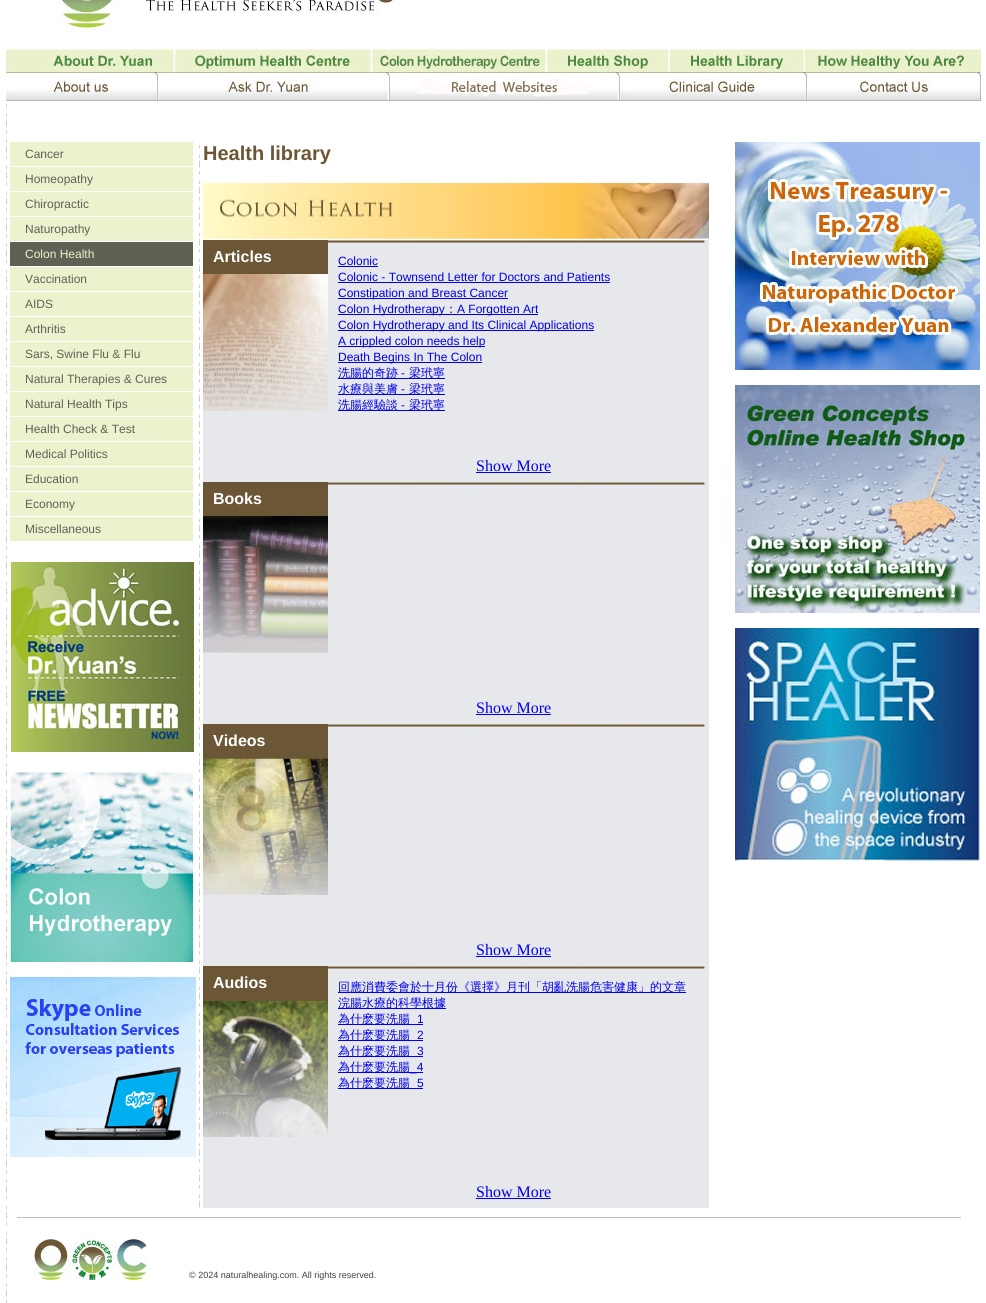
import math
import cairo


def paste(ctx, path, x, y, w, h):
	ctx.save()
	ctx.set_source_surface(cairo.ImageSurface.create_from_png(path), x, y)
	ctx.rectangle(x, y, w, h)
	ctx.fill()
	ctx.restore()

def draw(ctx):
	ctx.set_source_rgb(1, 1, 1)
	ctx.paint()
	paste(ctx, 'media/1.png', 6, 0, 423, 49)
	paste(ctx, 'media/2.png', 6, 49, 168, 23)
	paste(ctx, 'media/3.png', 175, 49, 196, 23)
	paste(ctx, 'media/4.png', 372, 49, 174, 23)
	paste(ctx, 'media/5.png', 547, 49, 122, 23)
	paste(ctx, 'media/6.png', 670, 49, 134, 23)
	paste(ctx, 'media/7.png', 805, 49, 176, 23)
	paste(ctx, 'media/8.png', 6, 72, 152, 29)
	paste(ctx, 'media/9.png', 158, 72, 232, 29)
	paste(ctx, 'media/10.png', 390, 72, 230, 29)
	paste(ctx, 'media/11.png', 620, 72, 187, 29)
	paste(ctx, 'media/12.png', 807, 72, 174, 29)
	paste(ctx, 'media/13.png', 6, 103, 1, 1200)
	ctx.set_source_rgb(0.918, 0.949, 0.804)
	ctx.rectangle(10, 142, 183, 24)
	ctx.fill()
	ctx.select_font_face('Liberation Sans')
	ctx.set_font_size(12)
	ctx.set_source_rgb(0.369, 0.384, 0.329)
	ctx.move_to(25, 158)
	ctx.show_text('Cancer')
	ctx.set_source_rgb(0.918, 0.949, 0.804)
	ctx.rectangle(10, 167, 183, 24)
	ctx.fill()
	ctx.set_source_rgb(0.369, 0.384, 0.329)
	ctx.move_to(25, 183)
	ctx.show_text('Homeopathy')
	ctx.set_source_rgb(0.918, 0.949, 0.804)
	ctx.rectangle(10, 192, 183, 24)
	ctx.fill()
	ctx.set_source_rgb(0.369, 0.384, 0.329)
	ctx.move_to(25, 208)
	ctx.show_text('Chiropractic')
	ctx.set_source_rgb(0.918, 0.949, 0.804)
	ctx.rectangle(10, 217, 183, 24)
	ctx.fill()
	ctx.set_source_rgb(0.369, 0.384, 0.329)
	ctx.move_to(25, 233)
	ctx.show_text('Naturopathy')
	ctx.rectangle(10, 242, 183, 24)
	ctx.fill()
	ctx.set_source_rgb(0.918, 0.949, 0.804)
	ctx.move_to(25, 258)
	ctx.show_text('Colon Health')
	ctx.rectangle(10, 267, 183, 24)
	ctx.fill()
	ctx.set_source_rgb(0.369, 0.384, 0.329)
	ctx.move_to(25, 283)
	ctx.show_text('Vaccination')
	ctx.set_source_rgb(0.918, 0.949, 0.804)
	ctx.rectangle(10, 292, 183, 24)
	ctx.fill()
	ctx.set_source_rgb(0.369, 0.384, 0.329)
	ctx.move_to(25, 308)
	ctx.show_text('AIDS')
	ctx.set_source_rgb(0.918, 0.949, 0.804)
	ctx.rectangle(10, 317, 183, 24)
	ctx.fill()
	ctx.set_source_rgb(0.369, 0.384, 0.329)
	ctx.move_to(25, 333)
	ctx.show_text('Arthritis')
	ctx.set_source_rgb(0.918, 0.949, 0.804)
	ctx.rectangle(10, 342, 183, 24)
	ctx.fill()
	ctx.set_source_rgb(0.369, 0.384, 0.329)
	ctx.move_to(25, 358)
	ctx.show_text('Sars, Swine Flu & Flu')
	ctx.set_source_rgb(0.918, 0.949, 0.804)
	ctx.rectangle(10, 367, 183, 24)
	ctx.fill()
	ctx.set_source_rgb(0.369, 0.384, 0.329)
	ctx.move_to(25, 383)
	ctx.show_text('Natural Therapies & Cures')
	ctx.set_source_rgb(0.918, 0.949, 0.804)
	ctx.rectangle(10, 392, 183, 24)
	ctx.fill()
	ctx.set_source_rgb(0.369, 0.384, 0.329)
	ctx.move_to(25, 408)
	ctx.show_text('Natural Health Tips')
	ctx.set_source_rgb(0.918, 0.949, 0.804)
	ctx.rectangle(10, 417, 183, 24)
	ctx.fill()
	ctx.set_source_rgb(0.369, 0.384, 0.329)
	ctx.move_to(25, 433)
	ctx.show_text('Health Check & Test')
	ctx.set_source_rgb(0.918, 0.949, 0.804)
	ctx.rectangle(10, 442, 183, 24)
	ctx.fill()
	ctx.set_source_rgb(0.369, 0.384, 0.329)
	ctx.move_to(25, 458)
	ctx.show_text('Medical Politics')
	ctx.set_source_rgb(0.918, 0.949, 0.804)
	ctx.rectangle(10, 467, 183, 24)
	ctx.fill()
	ctx.set_source_rgb(0.369, 0.384, 0.329)
	ctx.move_to(25, 483)
	ctx.show_text('Education')
	ctx.set_source_rgb(0.918, 0.949, 0.804)
	ctx.rectangle(10, 492, 183, 24)
	ctx.fill()
	ctx.set_source_rgb(0.369, 0.384, 0.329)
	ctx.move_to(25, 508)
	ctx.show_text('Economy')
	ctx.set_source_rgb(0.918, 0.949, 0.804)
	ctx.rectangle(10, 517, 183, 24)
	ctx.fill()
	ctx.set_source_rgb(0.369, 0.384, 0.329)
	ctx.move_to(25, 533)
	ctx.show_text('Miscellaneous')
	paste(ctx, 'media/14.png', 11, 562, 183, 190)
	paste(ctx, 'media/15.png', 10, 772, 183, 190)
	paste(ctx, 'media/16.png', 10, 977, 186, 180)
	paste(ctx, 'media/17.png', 199, 144, 1, 1064)
	ctx.select_font_face('Liberation Sans', cairo.FONT_SLANT_NORMAL, cairo.FONT_WEIGHT_BOLD)
	ctx.set_font_size(20)
	ctx.set_source_rgb(0.42, 0.341, 0.212)
	ctx.move_to(203, 160)
	ctx.show_text('Health library')
	paste(ctx, 'media/18.png', 203, 183, 506, 56)
	ctx.set_source_rgb(0.906, 0.91, 0.918)
	ctx.rectangle(203, 240, 506, 968)
	ctx.fill()
	ctx.set_source_rgb(0.42, 0.341, 0.212)
	ctx.rectangle(203, 240, 125, 34)
	ctx.fill()
	ctx.set_font_size(16)
	ctx.set_source_rgb(1, 1, 1)
	ctx.move_to(213, 262)
	ctx.show_text('Articles')
	paste(ctx, 'media/19.png', 203, 274, 125, 137)
	paste(ctx, 'media/20.png', 328, 240, 377, 3)
	ctx.select_font_face('Liberation Sans')
	ctx.set_font_size(12)
	ctx.set_source_rgb(0, 0, 0.933)
	ctx.move_to(338, 265)
	ctx.show_text('Colonic')
	ctx.rectangle(338, 266, 40, 1)
	ctx.fill()
	ctx.move_to(338, 281)
	ctx.show_text('Colonic - Townsend Letter for Doctors and Patients')
	ctx.rectangle(338, 282, 272, 1)
	ctx.fill()
	ctx.rectangle(338, 298, 170, 1)
	ctx.fill()
	ctx.move_to(338, 297)
	ctx.show_text('Constipation and Breast Cancer')
	ctx.rectangle(338, 314, 200, 1)
	ctx.fill()
	ctx.move_to(338, 313)
	ctx.show_text('Colon Hydrotherapy')
	ctx.select_font_face('WenQuanYi Zen Hei Medium')
	ctx.move_to(445, 313)
	ctx.show_text('：')
	ctx.select_font_face('Liberation Sans')
	ctx.move_to(457, 313)
	ctx.show_text('A Forgotten Art')
	ctx.rectangle(338, 330, 256, 1)
	ctx.fill()
	ctx.move_to(338, 329)
	ctx.show_text('Colon Hydrotherapy and Its Clinical Applications')
	ctx.rectangle(338, 346, 147, 1)
	ctx.fill()
	ctx.move_to(338, 345)
	ctx.show_text('A crippled colon needs help')
	ctx.rectangle(338, 362, 144, 1)
	ctx.fill()
	ctx.move_to(338, 361)
	ctx.show_text('Death Begins In The Colon')
	ctx.rectangle(338, 378, 107, 1)
	ctx.fill()
	ctx.select_font_face('WenQuanYi Zen Hei Medium')
	ctx.move_to(338, 377)
	ctx.show_text('洗腸的奇跡')
	ctx.select_font_face('Liberation Sans')
	ctx.move_to(401, 377)
	ctx.show_text('-')
	ctx.select_font_face('WenQuanYi Zen Hei Medium')
	ctx.move_to(409, 377)
	ctx.show_text('梁玳寧')
	ctx.rectangle(338, 394, 107, 1)
	ctx.fill()
	ctx.move_to(338, 393)
	ctx.show_text('水療與美膚')
	ctx.select_font_face('Liberation Sans')
	ctx.move_to(401, 393)
	ctx.show_text('-')
	ctx.select_font_face('WenQuanYi Zen Hei Medium')
	ctx.move_to(409, 393)
	ctx.show_text('梁玳寧')
	ctx.rectangle(338, 410, 107, 1)
	ctx.fill()
	ctx.move_to(338, 409)
	ctx.show_text('洗腸經驗談')
	ctx.select_font_face('Liberation Sans')
	ctx.move_to(401, 409)
	ctx.show_text('-')
	ctx.select_font_face('WenQuanYi Zen Hei Medium')
	ctx.move_to(409, 409)
	ctx.show_text('梁玳寧')
	ctx.select_font_face('Liberation Serif')
	ctx.set_font_size(16)
	ctx.move_to(476, 471)
	ctx.show_text('Show More')
	ctx.rectangle(476, 472, 75, 1)
	ctx.fill()
	ctx.set_source_rgb(0.42, 0.341, 0.212)
	ctx.rectangle(203, 482, 125, 34)
	ctx.fill()
	ctx.select_font_face('Liberation Sans', cairo.FONT_SLANT_NORMAL, cairo.FONT_WEIGHT_BOLD)
	ctx.set_source_rgb(1, 1, 1)
	ctx.move_to(213, 504)
	ctx.show_text('Books')
	paste(ctx, 'media/21.png', 203, 516, 125, 137)
	paste(ctx, 'media/20.png', 328, 482, 377, 3)
	ctx.select_font_face('Liberation Serif')
	ctx.set_source_rgb(0, 0, 0.933)
	ctx.move_to(476, 713)
	ctx.show_text('Show More')
	ctx.rectangle(476, 714, 75, 1)
	ctx.fill()
	ctx.set_source_rgb(0.42, 0.341, 0.212)
	ctx.rectangle(203, 724, 125, 34)
	ctx.fill()
	ctx.select_font_face('Liberation Sans', cairo.FONT_SLANT_NORMAL, cairo.FONT_WEIGHT_BOLD)
	ctx.set_source_rgb(1, 1, 1)
	ctx.move_to(213, 746)
	ctx.show_text('Videos')
	paste(ctx, 'media/22.png', 203, 758, 125, 137)
	paste(ctx, 'media/20.png', 328, 724, 377, 3)
	ctx.select_font_face('Liberation Serif')
	ctx.set_source_rgb(0, 0, 0.933)
	ctx.move_to(476, 955)
	ctx.show_text('Show More')
	ctx.rectangle(476, 956, 75, 1)
	ctx.fill()
	ctx.set_source_rgb(0.42, 0.341, 0.212)
	ctx.rectangle(203, 966, 125, 34)
	ctx.fill()
	ctx.select_font_face('Liberation Sans', cairo.FONT_SLANT_NORMAL, cairo.FONT_WEIGHT_BOLD)
	ctx.set_source_rgb(1, 1, 1)
	ctx.move_to(213, 988)
	ctx.show_text('Audios')
	paste(ctx, 'media/23.png', 203, 1000, 125, 137)
	paste(ctx, 'media/20.png', 328, 966, 377, 3)
	ctx.set_source_rgb(0, 0, 0.933)
	ctx.rectangle(338, 992, 348, 1)
	ctx.fill()
	ctx.select_font_face('WenQuanYi Zen Hei Medium')
	ctx.set_font_size(12)
	ctx.move_to(338, 991)
	ctx.show_text('回應消費委會於十月份《選擇》月刊「胡亂洗腸危害健康」的文章')
	ctx.rectangle(338, 1008, 108, 1)
	ctx.fill()
	ctx.move_to(338, 1007)
	ctx.show_text('浣腸水療的科學根據')
	ctx.rectangle(338, 1024, 85, 1)
	ctx.fill()
	ctx.move_to(338, 1023)
	ctx.show_text('為什麽要洗腸')
	ctx.select_font_face('Liberation Sans')
	ctx.move_to(417, 1023)
	ctx.show_text('1')
	ctx.rectangle(338, 1040, 85, 1)
	ctx.fill()
	ctx.select_font_face('WenQuanYi Zen Hei Medium')
	ctx.move_to(338, 1039)
	ctx.show_text('為什麽要洗腸')
	ctx.select_font_face('Liberation Sans')
	ctx.move_to(417, 1039)
	ctx.show_text('2')
	ctx.rectangle(338, 1056, 85, 1)
	ctx.fill()
	ctx.select_font_face('WenQuanYi Zen Hei Medium')
	ctx.move_to(338, 1055)
	ctx.show_text('為什麽要洗腸')
	ctx.select_font_face('Liberation Sans')
	ctx.move_to(417, 1055)
	ctx.show_text('3')
	ctx.rectangle(338, 1072, 85, 1)
	ctx.fill()
	ctx.select_font_face('WenQuanYi Zen Hei Medium')
	ctx.move_to(338, 1071)
	ctx.show_text('為什麽要洗腸')
	ctx.select_font_face('Liberation Sans')
	ctx.move_to(410, 1071)
	ctx.show_text('_4')
	ctx.rectangle(338, 1088, 85, 1)
	ctx.fill()
	ctx.select_font_face('WenQuanYi Zen Hei Medium')
	ctx.move_to(338, 1087)
	ctx.show_text('為什麽要洗腸')
	ctx.select_font_face('Liberation Sans')
	ctx.move_to(417, 1087)
	ctx.show_text('5')
	ctx.select_font_face('Liberation Serif')
	ctx.set_font_size(16)
	ctx.move_to(476, 1197)
	ctx.show_text('Show More')
	ctx.rectangle(476, 1198, 75, 1)
	ctx.fill()
	paste(ctx, 'media/24.png', 735, 142, 245, 228)
	paste(ctx, 'media/25.png', 735, 385, 245, 228)
	paste(ctx, 'media/26.png', 735, 628, 245, 233)
	ctx.set_source_rgb(0.749, 0.749, 0.749)
	ctx.rectangle(17, 1217, 944, 1)
	ctx.fill()
	paste(ctx, 'media/27.png', 34, 1239, 113, 41)
	ctx.select_font_face('Liberation Sans')
	ctx.set_font_size(9)
	ctx.set_source_rgb(0.255, 0.255, 0.259)
	ctx.move_to(189, 1278)
	ctx.show_text('© 2024 naturalhealing.com. All rights reserved.')


surface = cairo.ImageSurface(cairo.FORMAT_RGB24, 986, 1303)
ctx = cairo.Context(surface)
options = cairo.FontOptions()
options.set_hint_metrics(cairo.HINT_METRICS_OFF)
options.set_hint_style(cairo.HINT_STYLE_NONE)
ctx.set_font_options(options)
ctx.set_miter_limit(4)
draw(ctx)
surface.write_to_png('image.png')
